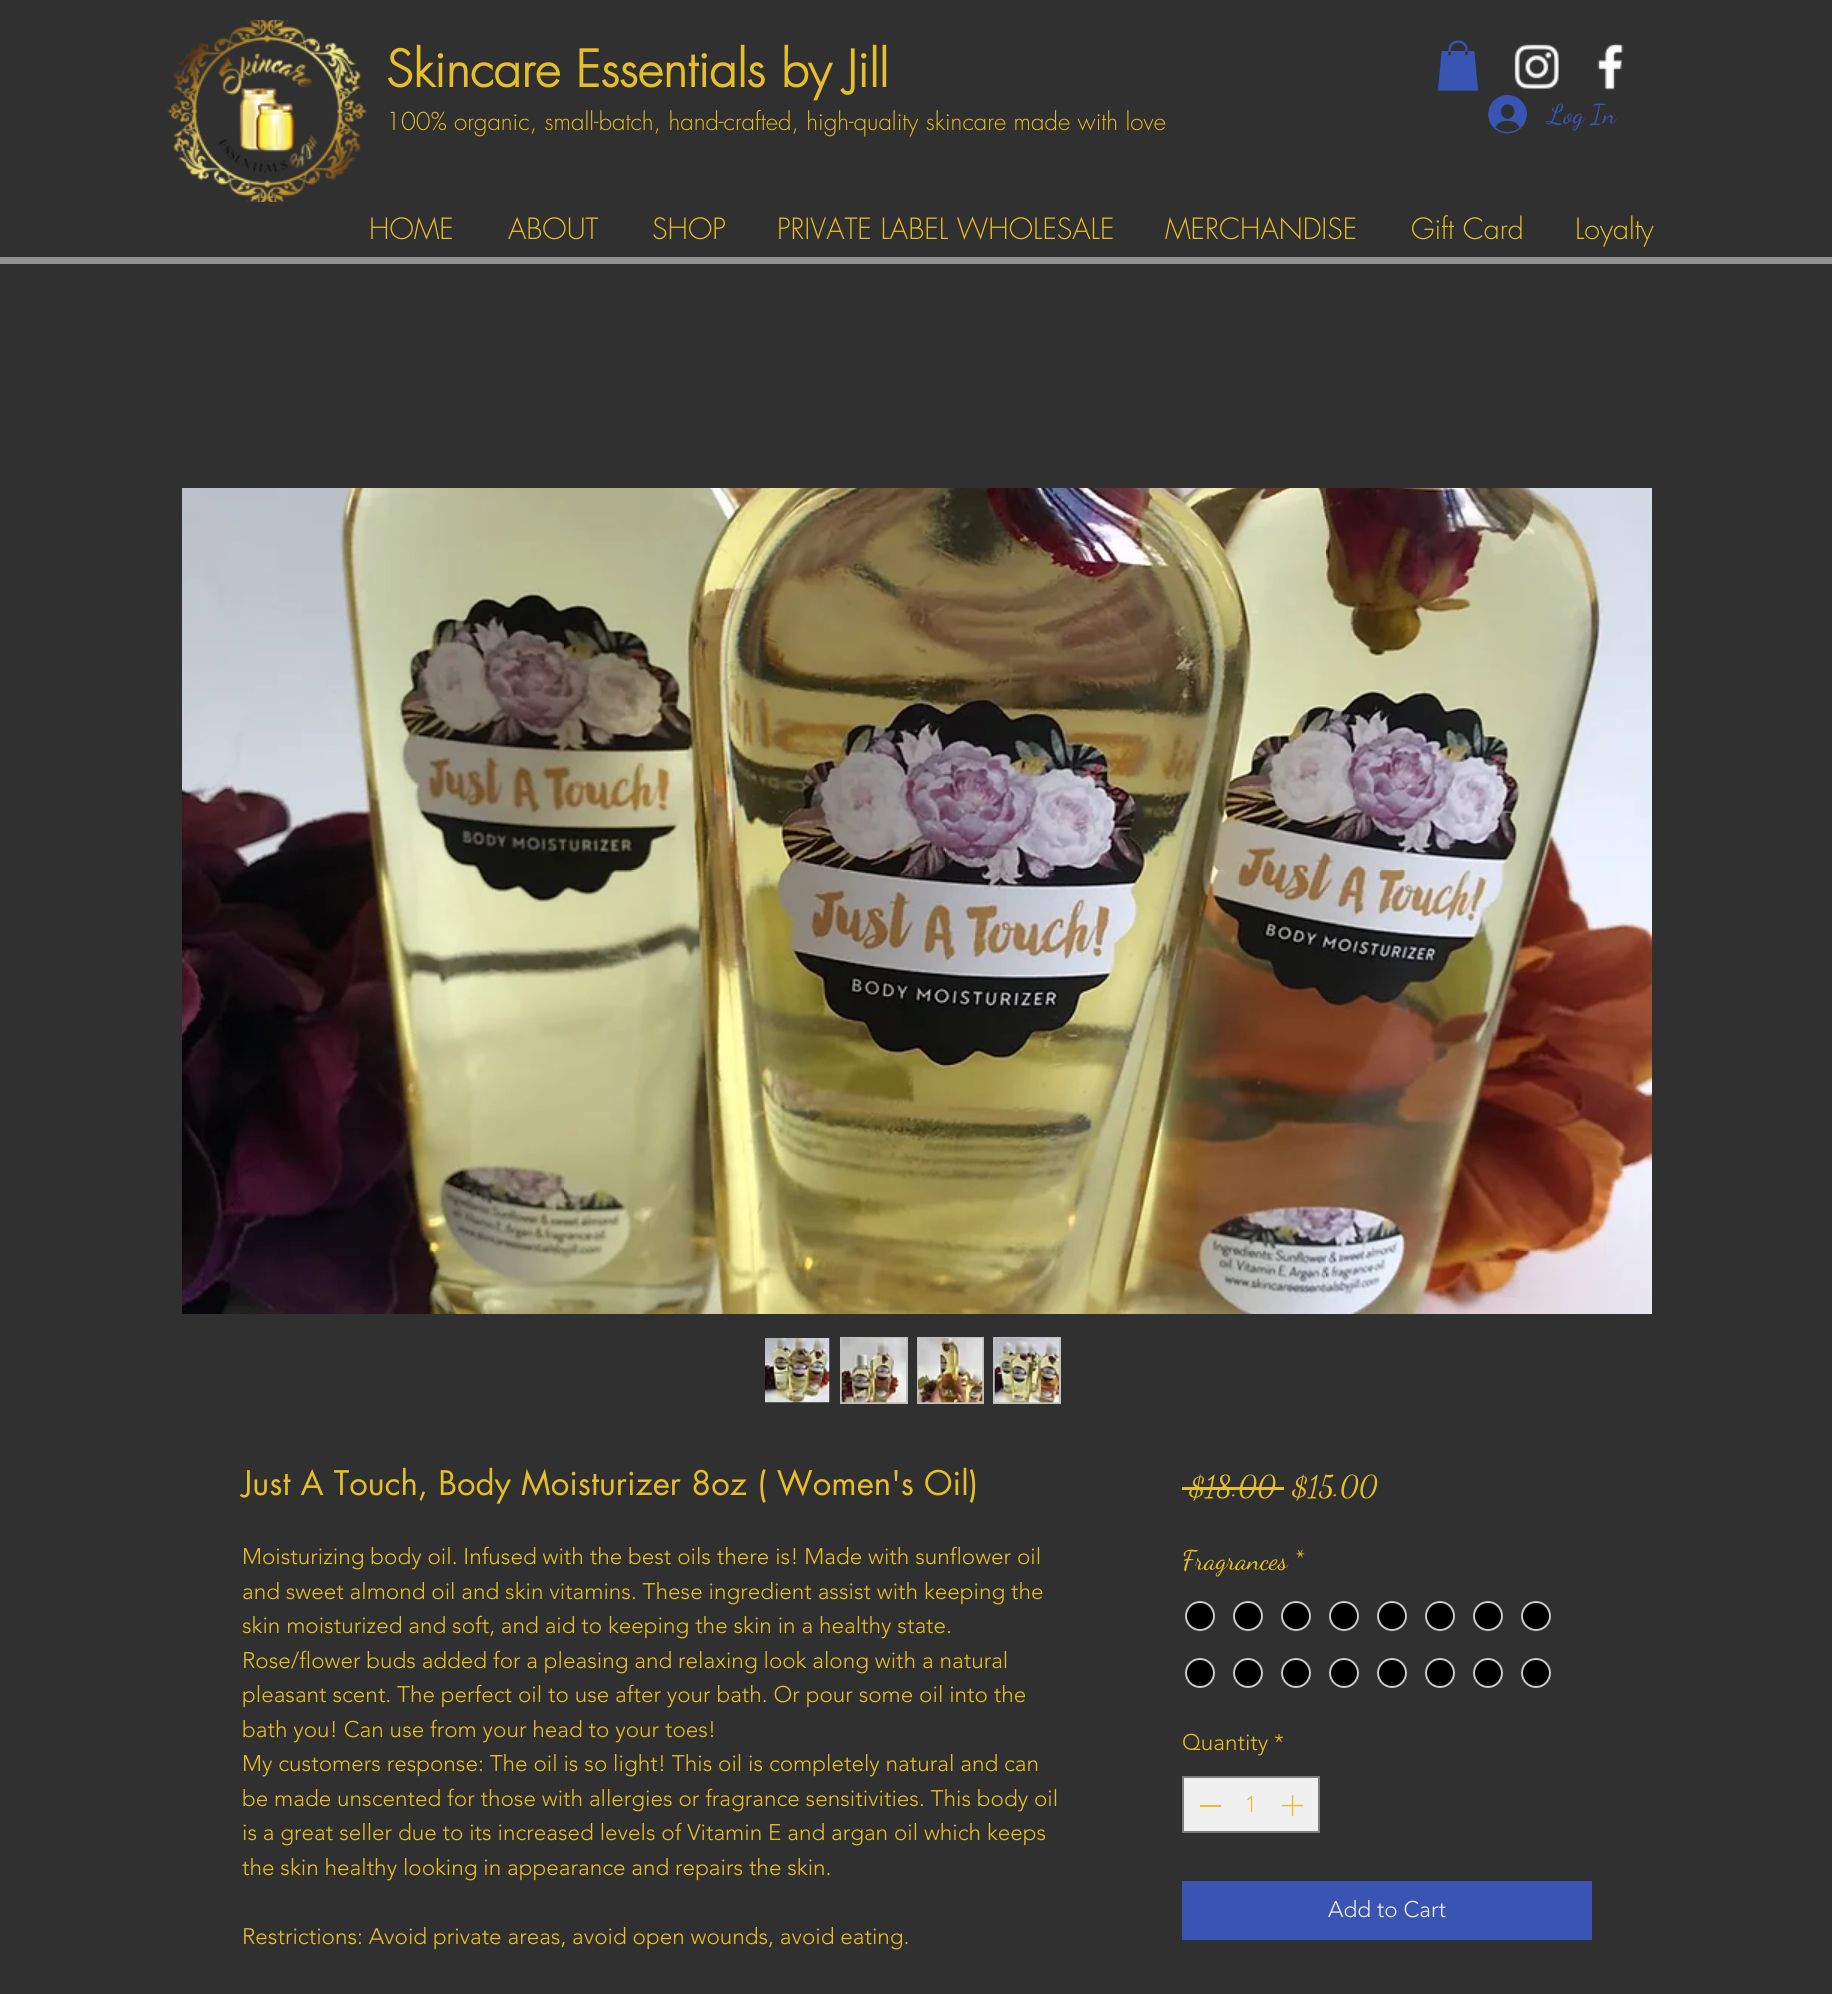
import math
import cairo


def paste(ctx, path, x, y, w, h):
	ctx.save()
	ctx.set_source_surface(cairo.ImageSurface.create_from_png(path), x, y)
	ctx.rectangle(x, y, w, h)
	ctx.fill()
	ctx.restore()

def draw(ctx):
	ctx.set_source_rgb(0.188, 0.188, 0.188)
	ctx.paint()
	paste(ctx, 'media/1.png', 167, 20, 200, 182)
	ctx.select_font_face('futura', cairo.FONT_SLANT_NORMAL, cairo.FONT_WEIGHT_BOLD)
	ctx.set_font_size(49.5)
	ctx.set_source_rgb(0.902, 0.745, 0.153)
	ctx.move_to(386, 87)
	ctx.show_text('Skincare Essentials by Jill')
	paste(ctx, 'media/2.png', 1438, 40, 40, 51)
	paste(ctx, 'media/3.png', 1514, 44, 45, 45)
	paste(ctx, 'media/4.png', 1597, 43, 27, 48)
	ctx.select_font_face('futura Light')
	ctx.set_font_size(24)
	ctx.move_to(386, 130)
	ctx.show_text('100% organic, small-batch, hand-crafted, high-quality skincare made with love')
	paste(ctx, 'media/5.png', 1488, 95, 39, 39)
	ctx.select_font_face('Dancing Script')
	ctx.set_font_size(27)
	ctx.set_source_rgb(0.227, 0.329, 0.706)
	ctx.move_to(1548, 123)
	ctx.show_text('Log In')
	ctx.select_font_face('futura Light')
	ctx.set_font_size(28.5)
	ctx.set_source_rgb(0.902, 0.745, 0.153)
	for x, y, s in [
		(369, 239, 'HOME'),
		(508, 239, 'ABOUT'),
		(652, 239, 'SHOP'),
		(777, 239, 'PRIVATE LABEL WHOLESALE'),
		(1165, 239, 'MERCHANDISE'),
		(1411, 239, 'Gift Card'),
		(1575, 239, 'Loyalty'),
	]:
		ctx.move_to(x, y)
		ctx.show_text(s)
	ctx.set_source_rgb(0.565, 0.565, 0.565)
	ctx.rectangle(0, 257, 1832, 7)
	ctx.fill()
	paste(ctx, 'media/6.png', 182, 488, 1470, 826)
	paste(ctx, 'media/7.png', 765, 1338, 65, 65)
	ctx.set_source_rgb(0.753, 0.753, 0.753)
	ctx.rectangle(840, 1337, 68, 67)
	ctx.fill()
	paste(ctx, 'media/8.png', 841, 1338, 65, 65)
	ctx.rectangle(917, 1337, 67, 67)
	ctx.fill()
	paste(ctx, 'media/9.png', 918, 1338, 65, 65)
	ctx.rectangle(993, 1337, 68, 67)
	ctx.fill()
	paste(ctx, 'media/10.png', 994, 1338, 65, 65)
	ctx.select_font_face('futura')
	ctx.set_font_size(33)
	ctx.set_source_rgb(0.902, 0.745, 0.153)
	ctx.move_to(242, 1495)
	ctx.show_text('Just A Touch, Body Moisturizer 8oz ( Women\'s Oil)')
	ctx.select_font_face('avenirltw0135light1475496 Light')
	ctx.set_font_size(22.5)
	for x, y, s in [
		(242, 1564, 'Moisturizing body oil. Infused with the best oils there is! Made with sunflower oil'),
		(242, 1599, 'and sweet almond oil and skin vitamins. These ingredient assist with keeping the'),
		(242, 1633, 'skin moisturized and soft, and aid to keeping the skin in a healthy state.'),
		(242, 1668, 'Rose/flower buds added for a pleasing and relaxing look along with a natural'),
		(242, 1702, 'pleasant scent. The perfect oil to use after your bath. Or pour some oil into the'),
		(242, 1737, 'bath you! Can use from your head to your toes!'),
		(242, 1771, 'My customers response: The oil is so light! This oil is completely natural and can'),
		(242, 1806, 'be made unscented for those with allergies or fragrance sensitivities. This body oil'),
		(242, 1840, 'is a great seller due to its increased levels of Vitamin E and argan oil which keeps'),
		(242, 1875, 'the skin healthy looking in appearance and repairs the skin.'),
		(242, 1944, 'Restrictions: Avoid private areas, avoid open wounds, avoid eating.'),
	]:
		ctx.move_to(x, y)
		ctx.show_text(s)
	ctx.select_font_face('Dancing Script')
	ctx.set_font_size(30)
	ctx.move_to(1189, 1496)
	ctx.show_text('$18.00')
	ctx.rectangle(1182, 1487, 102, 3)
	ctx.fill()
	ctx.move_to(1292, 1496)
	ctx.show_text('$15.00')
	ctx.set_font_size(27)
	ctx.move_to(1182, 1569)
	ctx.show_text('Fragrances')
	ctx.move_to(1293, 1569)
	ctx.show_text('*')
	ctx.set_source_rgb(0, 0, 0)
	ctx.new_path()
	ctx.arc(1200, 1616, 14, 0, 2 * math.pi)
	ctx.fill_preserve()
	ctx.set_source_rgb(0.788, 0.788, 0.788)
	ctx.stroke()
	ctx.set_source_rgb(0, 0, 0)
	ctx.arc(1248, 1616, 14, 0, 2 * math.pi)
	ctx.fill_preserve()
	ctx.set_source_rgb(0.788, 0.788, 0.788)
	ctx.stroke()
	ctx.set_source_rgb(0, 0, 0)
	ctx.arc(1296, 1616, 14, 0, 2 * math.pi)
	ctx.fill_preserve()
	ctx.set_source_rgb(0.788, 0.788, 0.788)
	ctx.stroke()
	ctx.set_source_rgb(0, 0, 0)
	ctx.arc(1344, 1616, 14, 0, 2 * math.pi)
	ctx.fill_preserve()
	ctx.set_source_rgb(0.788, 0.788, 0.788)
	ctx.stroke()
	ctx.set_source_rgb(0, 0, 0)
	ctx.arc(1392, 1616, 14, 0, 2 * math.pi)
	ctx.fill_preserve()
	ctx.set_source_rgb(0.788, 0.788, 0.788)
	ctx.stroke()
	ctx.set_source_rgb(0, 0, 0)
	ctx.arc(1440, 1616, 14, 0, 2 * math.pi)
	ctx.fill_preserve()
	ctx.set_source_rgb(0.788, 0.788, 0.788)
	ctx.stroke()
	ctx.set_source_rgb(0, 0, 0)
	ctx.arc(1488, 1616, 14, 0, 2 * math.pi)
	ctx.fill_preserve()
	ctx.set_source_rgb(0.788, 0.788, 0.788)
	ctx.stroke()
	ctx.set_source_rgb(0, 0, 0)
	ctx.arc(1536, 1616, 14, 0, 2 * math.pi)
	ctx.fill_preserve()
	ctx.set_source_rgb(0.788, 0.788, 0.788)
	ctx.stroke()
	ctx.set_source_rgb(0, 0, 0)
	ctx.arc(1200, 1673, 14, 0, 2 * math.pi)
	ctx.fill_preserve()
	ctx.set_source_rgb(0.788, 0.788, 0.788)
	ctx.stroke()
	ctx.set_source_rgb(0, 0, 0)
	ctx.arc(1248, 1673, 14, 0, 2 * math.pi)
	ctx.fill_preserve()
	ctx.set_source_rgb(0.788, 0.788, 0.788)
	ctx.stroke()
	ctx.set_source_rgb(0, 0, 0)
	ctx.arc(1296, 1673, 14, 0, 2 * math.pi)
	ctx.fill_preserve()
	ctx.set_source_rgb(0.788, 0.788, 0.788)
	ctx.stroke()
	ctx.set_source_rgb(0, 0, 0)
	ctx.arc(1344, 1673, 14, 0, 2 * math.pi)
	ctx.fill_preserve()
	ctx.set_source_rgb(0.788, 0.788, 0.788)
	ctx.stroke()
	ctx.set_source_rgb(0, 0, 0)
	ctx.arc(1392, 1673, 14, 0, 2 * math.pi)
	ctx.fill_preserve()
	ctx.set_source_rgb(0.788, 0.788, 0.788)
	ctx.stroke()
	ctx.set_source_rgb(0, 0, 0)
	ctx.arc(1440, 1673, 14, 0, 2 * math.pi)
	ctx.fill_preserve()
	ctx.set_source_rgb(0.788, 0.788, 0.788)
	ctx.stroke()
	ctx.set_source_rgb(0, 0, 0)
	ctx.arc(1488, 1673, 14, 0, 2 * math.pi)
	ctx.fill_preserve()
	ctx.set_source_rgb(0.788, 0.788, 0.788)
	ctx.stroke()
	ctx.set_source_rgb(0, 0, 0)
	ctx.arc(1536, 1673, 14, 0, 2 * math.pi)
	ctx.fill_preserve()
	ctx.set_source_rgb(0.788, 0.788, 0.788)
	ctx.stroke()
	ctx.select_font_face('avenirltw0135light1475496 Light')
	ctx.set_font_size(22.5)
	ctx.set_source_rgb(0.902, 0.745, 0.153)
	ctx.move_to(1182, 1750)
	ctx.show_text('Quantity *')
	ctx.set_source_rgb(0.941, 0.941, 0.941)
	ctx.rectangle(1183, 1777, 136, 55)
	ctx.fill_preserve()
	ctx.set_source_rgb(0.49, 0.49, 0.49)
	ctx.stroke()
	ctx.set_source_rgb(0.902, 0.745, 0.153)
	ctx.rectangle(1200, 1805, 21, 2)
	ctx.fill()
	ctx.move_to(1245, 1812)
	ctx.show_text('1')
	paste(ctx, 'media/11.png', 1282, 1795, 22, 22)
	ctx.set_source_rgb(0.227, 0.329, 0.706)
	ctx.rectangle(1182, 1881, 410, 59)
	ctx.fill()
	ctx.set_source_rgb(0.941, 0.941, 0.941)
	ctx.move_to(1328, 1917)
	ctx.show_text('Add to Cart')


surface = cairo.ImageSurface(cairo.FORMAT_RGB24, 1832, 1994)
ctx = cairo.Context(surface)
options = cairo.FontOptions()
options.set_hint_metrics(cairo.HINT_METRICS_OFF)
options.set_hint_style(cairo.HINT_STYLE_NONE)
ctx.set_font_options(options)
ctx.set_miter_limit(4)
draw(ctx)
surface.write_to_png('image.png')
